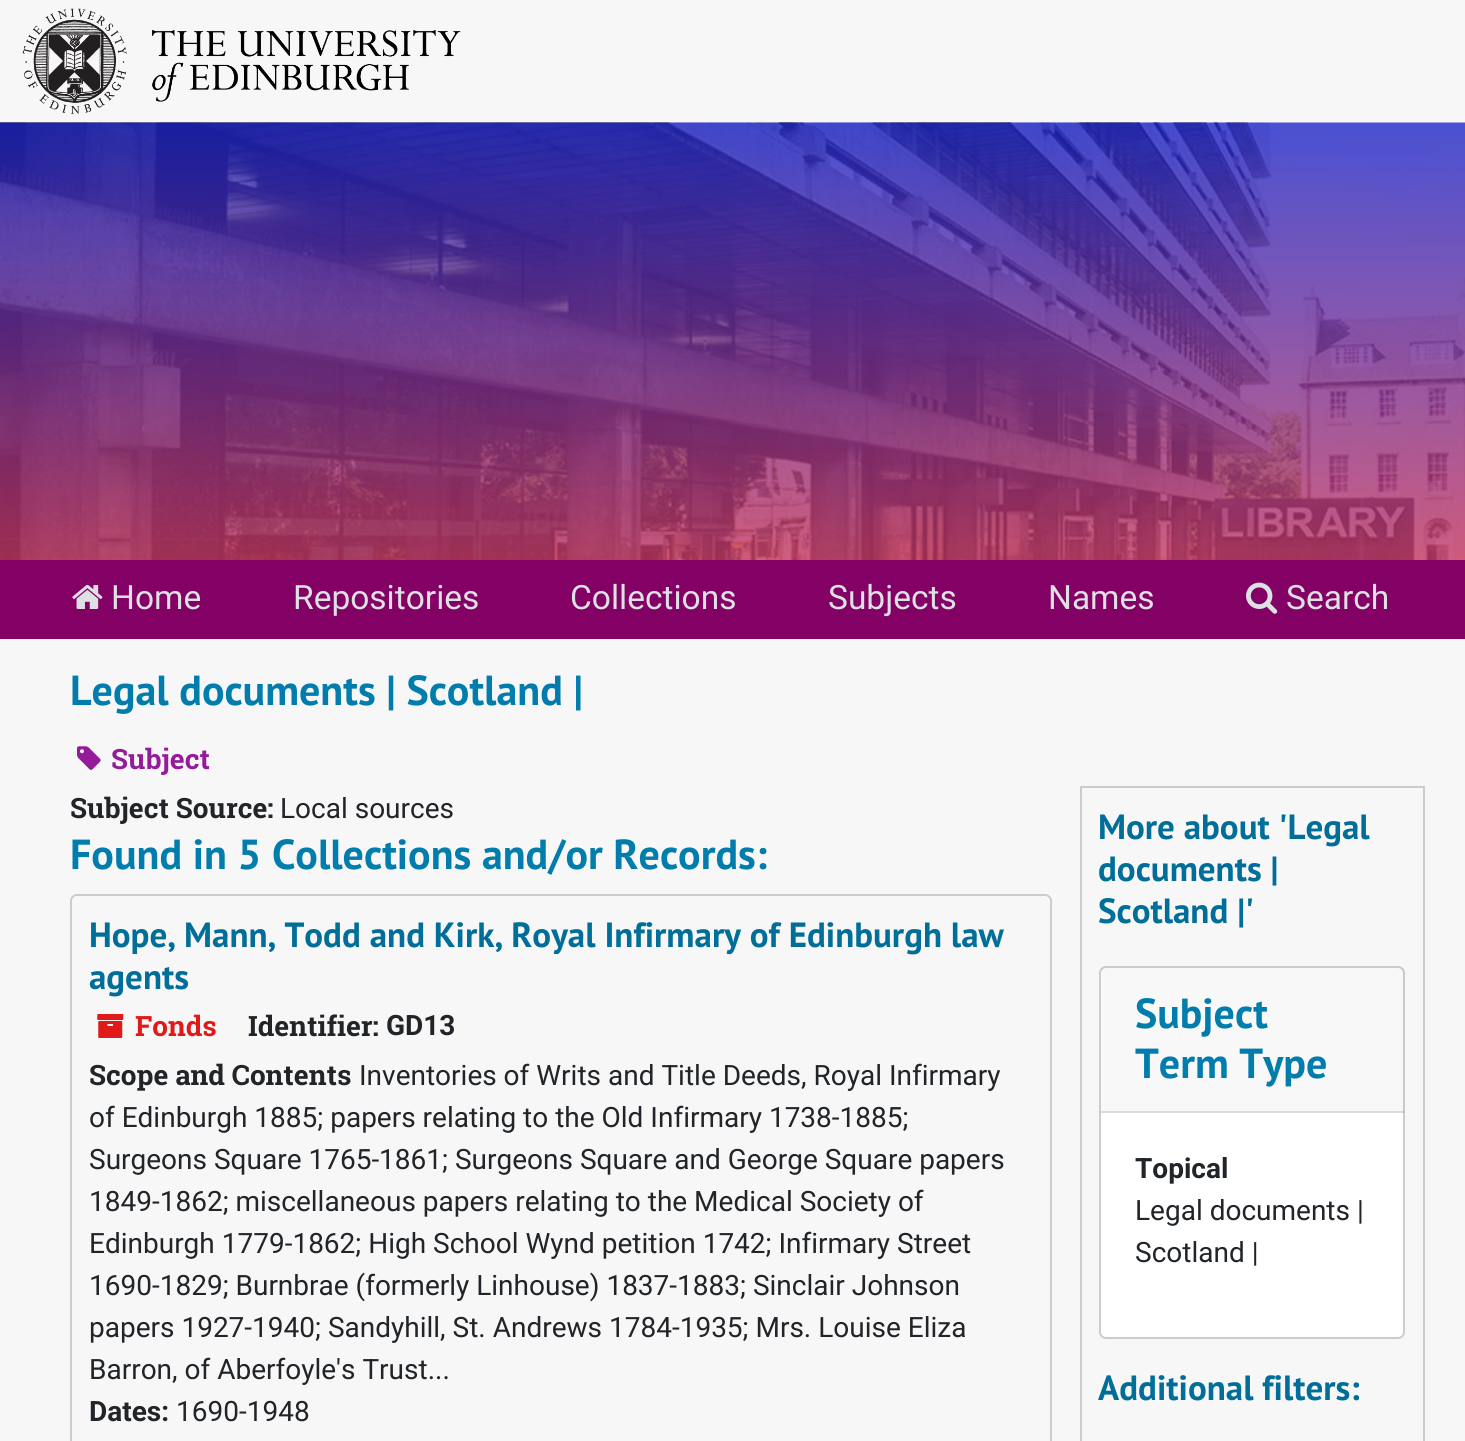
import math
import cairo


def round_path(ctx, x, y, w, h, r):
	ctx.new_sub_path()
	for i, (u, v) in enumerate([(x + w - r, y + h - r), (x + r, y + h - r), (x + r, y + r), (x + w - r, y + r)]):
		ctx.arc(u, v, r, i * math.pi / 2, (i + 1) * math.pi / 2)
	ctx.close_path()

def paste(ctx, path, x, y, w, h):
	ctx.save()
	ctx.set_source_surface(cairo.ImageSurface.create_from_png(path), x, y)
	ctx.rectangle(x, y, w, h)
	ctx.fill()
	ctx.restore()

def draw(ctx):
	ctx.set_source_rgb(0.965, 0.965, 0.965)
	ctx.paint()
	paste(ctx, 'media/1.png', 22, 8, 439, 106)
	paste(ctx, 'media/2.png', 0, 122, 1465, 438)
	ctx.set_source_rgb(0.514, 0, 0.396)
	ctx.rectangle(0, 560, 1465, 79)
	ctx.fill()
	paste(ctx, 'media/3.png', 72, 585, 31, 24)
	ctx.select_font_face('Roboto')
	ctx.set_font_size(33.5)
	ctx.set_source_rgb(0.867, 0.882, 0.89)
	for x, y, s in [
		(111, 609, 'Home'),
		(293, 609, 'Repositories'),
		(570, 609, 'Collections'),
		(828, 609, 'Subjects'),
		(1048, 609, 'Names'),
	]:
		ctx.move_to(x, y)
		ctx.show_text(s)
	paste(ctx, 'media/4.png', 1246, 582, 32, 32)
	ctx.move_to(1286, 609)
	ctx.show_text('Search')
	ctx.select_font_face('PT Sans', cairo.FONT_SLANT_NORMAL, cairo.FONT_WEIGHT_BOLD)
	ctx.set_font_size(42)
	ctx.set_source_rgb(0, 0.486, 0.678)
	ctx.move_to(70, 705)
	ctx.show_text('Legal documents | Scotland |')
	paste(ctx, 'media/5.png', 77, 746, 24, 24)
	ctx.select_font_face('Roboto Slab', cairo.FONT_SLANT_NORMAL, cairo.FONT_WEIGHT_BOLD)
	ctx.set_font_size(28)
	ctx.set_source_rgb(0.58, 0.11, 0.604)
	ctx.move_to(111, 769)
	ctx.show_text('Subject')
	ctx.set_source_rgb(0.129, 0.145, 0.161)
	ctx.move_to(70, 818)
	ctx.show_text('Subject Source:')
	ctx.select_font_face('Roboto')
	ctx.move_to(280, 818)
	ctx.show_text('Local sources')
	ctx.select_font_face('PT Sans', cairo.FONT_SLANT_NORMAL, cairo.FONT_WEIGHT_BOLD)
	ctx.set_font_size(42)
	ctx.set_source_rgb(0, 0.486, 0.678)
	ctx.move_to(70, 869)
	ctx.show_text('Found in 5 Collections and/or Records:')
	round_path(ctx, 71, 895, 980, 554, 6)
	ctx.set_source_rgb(0.8, 0.8, 0.8)
	ctx.stroke()
	ctx.set_font_size(35)
	ctx.set_source_rgb(0, 0.431, 0.6)
	ctx.move_to(89, 947)
	ctx.show_text('Hope, Mann, Todd and Kirk, Royal Infirmary of Edinburgh law')
	ctx.move_to(89, 989)
	ctx.show_text('agents')
	paste(ctx, 'media/6.png', 97, 1014, 27, 24)
	ctx.select_font_face('Roboto Slab', cairo.FONT_SLANT_NORMAL, cairo.FONT_WEIGHT_BOLD)
	ctx.set_font_size(28)
	ctx.set_source_rgb(0.878, 0.098, 0.098)
	ctx.move_to(135, 1036)
	ctx.show_text('Fonds')
	ctx.set_source_rgb(0.129, 0.145, 0.161)
	ctx.move_to(248, 1036)
	ctx.show_text('Identifier:')
	ctx.select_font_face('Roboto', cairo.FONT_SLANT_NORMAL, cairo.FONT_WEIGHT_BOLD)
	ctx.move_to(386, 1035)
	ctx.show_text('GD13')
	ctx.select_font_face('Roboto Slab', cairo.FONT_SLANT_NORMAL, cairo.FONT_WEIGHT_BOLD)
	ctx.move_to(89, 1085)
	ctx.show_text('Scope and Contents')
	ctx.select_font_face('Roboto')
	for x, y, s in [
		(359, 1085, 'Inventories of Writs and Title Deeds, Royal Infirmary'),
		(89, 1127, 'of Edinburgh 1885; papers relating to the Old Infirmary 1738-1885;'),
		(89, 1169, 'Surgeons Square 1765-1861; Surgeons Square and George Square papers'),
		(89, 1211, '1849-1862; miscellaneous papers relating to the Medical Society of'),
		(89, 1253, 'Edinburgh 1779-1862; High School Wynd petition 1742; Infirmary Street'),
		(89, 1295, '1690-1829; Burnbrae (formerly Linhouse) 1837-1883; Sinclair Johnson'),
		(89, 1337, 'papers 1927-1940; Sandyhill, St. Andrews 1784-1935; Mrs. Louise Eliza'),
		(89, 1379, 'Barron, of Aberfoyle\'s Trust...'),
	]:
		ctx.move_to(x, y)
		ctx.show_text(s)
	ctx.select_font_face('Roboto', cairo.FONT_SLANT_NORMAL, cairo.FONT_WEIGHT_BOLD)
	ctx.move_to(89, 1421)
	ctx.show_text('Dates:')
	ctx.select_font_face('Roboto')
	ctx.move_to(176, 1421)
	ctx.show_text('1690-1948')
	ctx.rectangle(1081, 787, 343, 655)
	ctx.set_source_rgb(0.8, 0.8, 0.8)
	ctx.stroke()
	ctx.select_font_face('PT Sans', cairo.FONT_SLANT_NORMAL, cairo.FONT_WEIGHT_BOLD)
	ctx.set_font_size(35)
	ctx.set_source_rgb(0, 0.431, 0.6)
	for x, y, s in [
		(1098, 839, 'More about \'Legal'),
		(1098, 881, 'documents |'),
		(1098, 923, 'Scotland |\''),
	]:
		ctx.move_to(x, y)
		ctx.show_text(s)
	ctx.set_source_rgb(1, 1, 1)
	round_path(ctx, 1100, 967, 304, 371, 6)
	ctx.fill_preserve()
	ctx.set_source_rgb(0.8, 0.8, 0.8)
	ctx.stroke()
	ctx.set_source_rgba(0, 0, 0, 0.03)
	ctx.rectangle(1101, 968, 303, 145)
	ctx.fill()
	ctx.set_source_rgba(0, 0, 0, 0.12)
	ctx.rectangle(1101, 1111, 303, 2)
	ctx.fill()
	ctx.set_font_size(42)
	ctx.set_source_rgb(0, 0.486, 0.678)
	ctx.move_to(1135, 1028)
	ctx.show_text('Subject')
	ctx.move_to(1135, 1078)
	ctx.show_text('Term Type')
	ctx.select_font_face('Roboto', cairo.FONT_SLANT_NORMAL, cairo.FONT_WEIGHT_BOLD)
	ctx.set_font_size(28)
	ctx.set_source_rgb(0.129, 0.145, 0.161)
	ctx.move_to(1135, 1178)
	ctx.show_text('Topical')
	ctx.select_font_face('Roboto')
	ctx.move_to(1135, 1220)
	ctx.show_text('Legal documents |')
	ctx.move_to(1135, 1262)
	ctx.show_text('Scotland |')
	ctx.select_font_face('PT Sans', cairo.FONT_SLANT_NORMAL, cairo.FONT_WEIGHT_BOLD)
	ctx.set_font_size(35)
	ctx.set_source_rgb(0, 0.431, 0.6)
	ctx.move_to(1098, 1400)
	ctx.show_text('Additional filters:')


surface = cairo.ImageSurface(cairo.FORMAT_RGB24, 1465, 1441)
ctx = cairo.Context(surface)
options = cairo.FontOptions()
options.set_hint_metrics(cairo.HINT_METRICS_OFF)
options.set_hint_style(cairo.HINT_STYLE_NONE)
ctx.set_font_options(options)
ctx.set_miter_limit(4)
draw(ctx)
surface.write_to_png('image.png')
